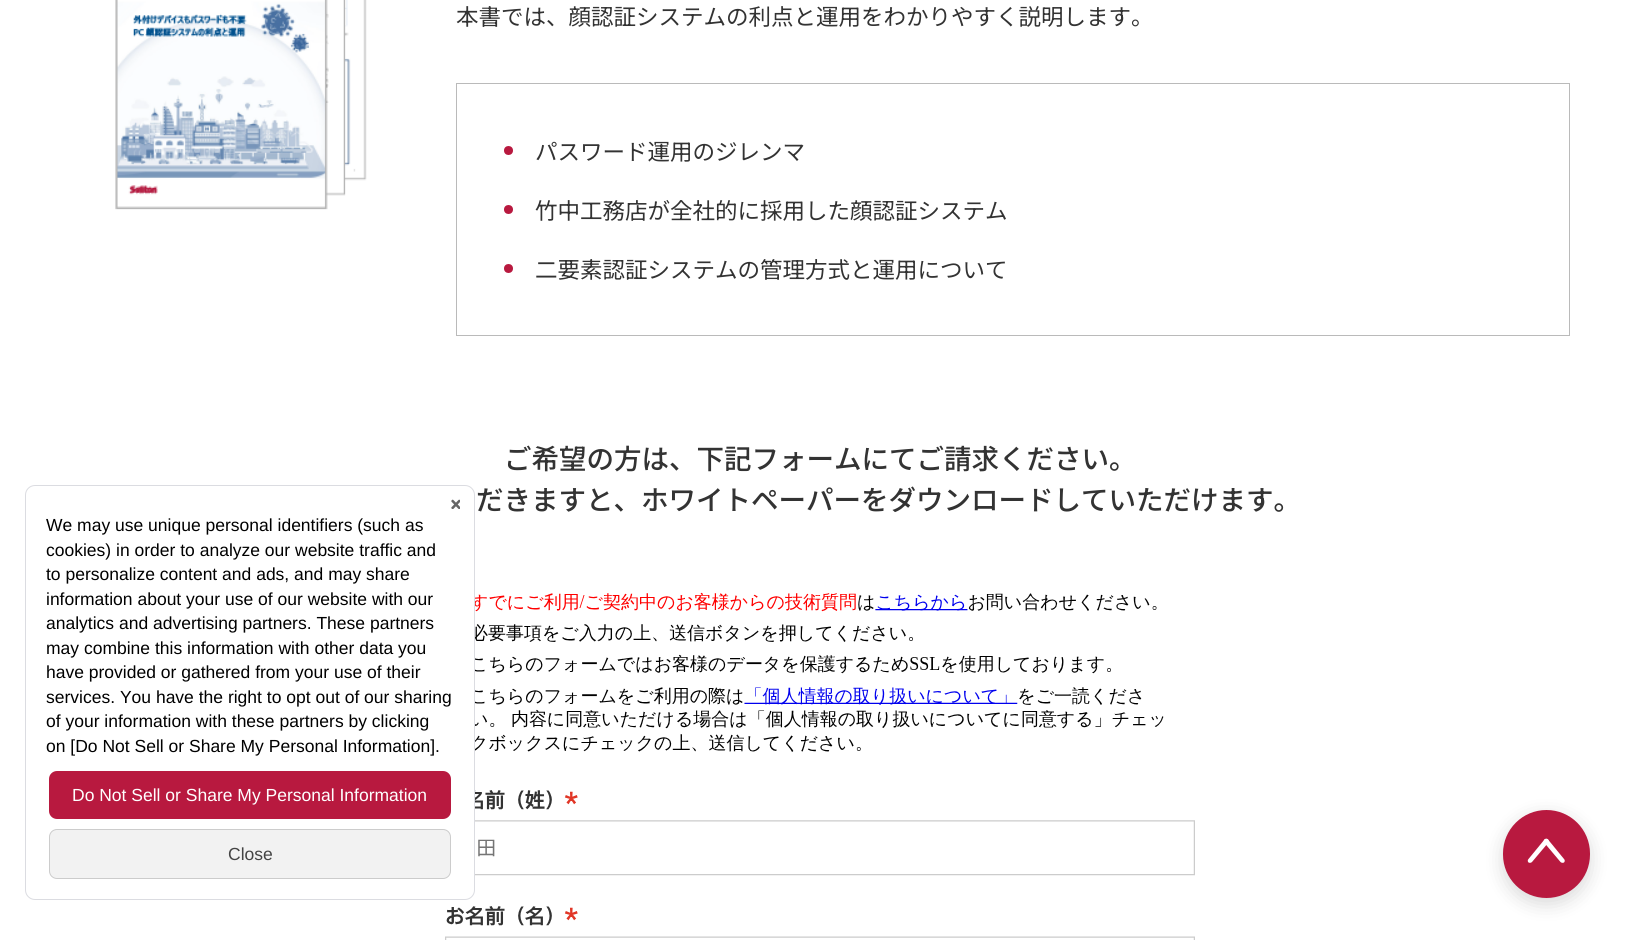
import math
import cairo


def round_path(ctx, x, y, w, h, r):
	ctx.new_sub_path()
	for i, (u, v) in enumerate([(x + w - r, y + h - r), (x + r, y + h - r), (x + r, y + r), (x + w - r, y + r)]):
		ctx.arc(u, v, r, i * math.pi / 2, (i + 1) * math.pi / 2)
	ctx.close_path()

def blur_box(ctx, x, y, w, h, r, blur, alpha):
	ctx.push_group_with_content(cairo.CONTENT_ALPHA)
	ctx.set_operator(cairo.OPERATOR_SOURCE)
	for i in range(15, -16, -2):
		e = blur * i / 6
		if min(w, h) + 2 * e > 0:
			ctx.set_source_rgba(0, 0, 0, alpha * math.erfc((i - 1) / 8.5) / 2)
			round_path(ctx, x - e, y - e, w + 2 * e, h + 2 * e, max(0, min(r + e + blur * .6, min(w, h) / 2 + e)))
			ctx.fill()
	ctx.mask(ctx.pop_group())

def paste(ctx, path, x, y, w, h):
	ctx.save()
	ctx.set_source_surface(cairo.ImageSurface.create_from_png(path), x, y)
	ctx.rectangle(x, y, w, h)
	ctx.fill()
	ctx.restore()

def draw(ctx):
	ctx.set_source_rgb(1, 1, 1)
	ctx.paint()
	paste(ctx, 'media/1.png', 115, 0, 252, 210)
	ctx.select_font_face('Noto Sans JP Thin')
	ctx.set_font_size(22.5)
	ctx.set_source_rgb(0.2, 0.2, 0.2)
	ctx.move_to(456, 25)
	ctx.show_text('本書では、顔認証システムの利点と運用をわかりやすく説明します。')
	ctx.rectangle(456.5, 83.5, 1113, 252)
	ctx.set_source_rgb(0.729, 0.729, 0.729)
	ctx.set_line_width(1)
	ctx.stroke()
	ctx.set_source_rgb(0.722, 0.098, 0.247)
	ctx.arc(508.5, 150.5, 4.5, 0, 2 * math.pi)
	ctx.fill()
	ctx.set_source_rgb(0.2, 0.2, 0.2)
	ctx.move_to(535, 160)
	ctx.show_text('パスワード運用のジレンマ')
	ctx.set_source_rgb(0.722, 0.098, 0.247)
	ctx.new_path()
	ctx.arc(508.5, 209.5, 4.5, 0, 2 * math.pi)
	ctx.fill()
	ctx.set_source_rgb(0.2, 0.2, 0.2)
	ctx.move_to(535, 219)
	ctx.show_text('竹中工務店が全社的に採用した顔認証システム')
	ctx.set_source_rgb(0.722, 0.098, 0.247)
	ctx.new_path()
	ctx.arc(508.5, 268.5, 4.5, 0, 2 * math.pi)
	ctx.fill()
	ctx.set_source_rgb(0.2, 0.2, 0.2)
	ctx.move_to(535, 278)
	ctx.show_text('二要素認証システムの管理方式と運用について')
	ctx.select_font_face('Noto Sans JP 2 Thin')
	ctx.set_font_size(27.5)
	ctx.move_to(504, 469)
	ctx.show_text('ご希望の方は、下記フォームにてご請求ください。')
	ctx.move_to(476, 510)
	ctx.show_text('だきますと、ホワイトペーパーをダウンロードしていただけます。')
	paste(ctx, 'media/2.png', 445, 592, 750, 348)
	ctx.set_source_rgb(0, 0, 0)
	blur_box(ctx, 1503, 816, 87, 88, 43.5, 9.5, 0.15)
	ctx.set_source_rgb(0.722, 0.098, 0.247)
	round_path(ctx, 1503, 810, 87, 88, 43.5)
	ctx.fill()
	ctx.set_source_rgb(1, 1, 1)
	ctx.new_path()
	ctx.move_to(1528.5, 859)
	ctx.line_to(1544.5, 839.5)
	ctx.curve_to(1545, 838.5, 1547, 838.5, 1548, 839.5)
	ctx.curve_to(1549, 840, 1549, 842, 1548, 843)
	ctx.line_to(1532, 862)
	ctx.curve_to(1531, 863, 1529.5, 863, 1528.5, 862.5)
	ctx.curve_to(1527.5, 861.5, 1527.5, 860, 1528.5, 859)
	ctx.close_path()
	ctx.fill()
	ctx.new_path()
	ctx.move_to(1560.5, 862)
	ctx.line_to(1544.5, 843)
	ctx.curve_to(1543.5, 842, 1543.5, 840, 1544.5, 839.5)
	ctx.curve_to(1545.5, 838.5, 1547.5, 838.5, 1548, 839.5)
	ctx.line_to(1564, 859)
	ctx.curve_to(1565, 860, 1565, 861.5, 1564, 862.5)
	ctx.curve_to(1563, 863, 1561.5, 863, 1560.5, 862)
	ctx.close_path()
	ctx.fill()
	round_path(ctx, 25.5, 485.5, 449, 414, 9.5)
	ctx.fill_preserve()
	ctx.set_source_rgb(0.859, 0.863, 0.882)
	ctx.stroke()
	paste(ctx, 'media/3.png', 451, 499, 9, 10)
	ctx.select_font_face('Liberation Sans')
	ctx.set_font_size(17.5)
	ctx.set_source_rgb(0, 0, 0)
	for x, y, s in [
		(46, 531, 'We may use unique personal identifiers (such as'),
		(46, 556, 'cookies) in order to analyze our website traffic and'),
		(46, 580, 'to personalize content and ads, and may share'),
		(46, 605, 'information about your use of our website with our'),
		(46, 629, 'analytics and advertising partners. These partners'),
		(46, 654, 'may combine this information with other data you'),
		(46, 678, 'have provided or gathered from your use of their'),
		(46, 703, 'services. You have the right to opt out of our sharing'),
		(46, 727, 'of your information with these partners by clicking'),
		(46, 752, 'on [Do Not Sell or Share My Personal Information].'),
	]:
		ctx.move_to(x, y)
		ctx.show_text(s)
	ctx.set_source_rgb(0.722, 0.098, 0.247)
	round_path(ctx, 49, 771, 402, 48, 8)
	ctx.fill()
	ctx.set_source_rgb(1, 1, 1)
	ctx.move_to(72, 801)
	ctx.show_text('Do Not Sell or Share My Personal Information')
	ctx.set_source_rgb(0.949, 0.949, 0.949)
	round_path(ctx, 49.5, 829.5, 401, 49, 7.5)
	ctx.fill_preserve()
	ctx.set_source_rgb(0.8, 0.8, 0.8)
	ctx.stroke()
	ctx.set_source_rgb(0.267, 0.267, 0.267)
	ctx.move_to(228, 860)
	ctx.show_text('Close')


surface = cairo.ImageSurface(cairo.FORMAT_RGB24, 1639, 940)
ctx = cairo.Context(surface)
options = cairo.FontOptions()
options.set_hint_metrics(cairo.HINT_METRICS_OFF)
options.set_hint_style(cairo.HINT_STYLE_NONE)
ctx.set_font_options(options)
ctx.set_miter_limit(4)
draw(ctx)
surface.write_to_png('image.png')
